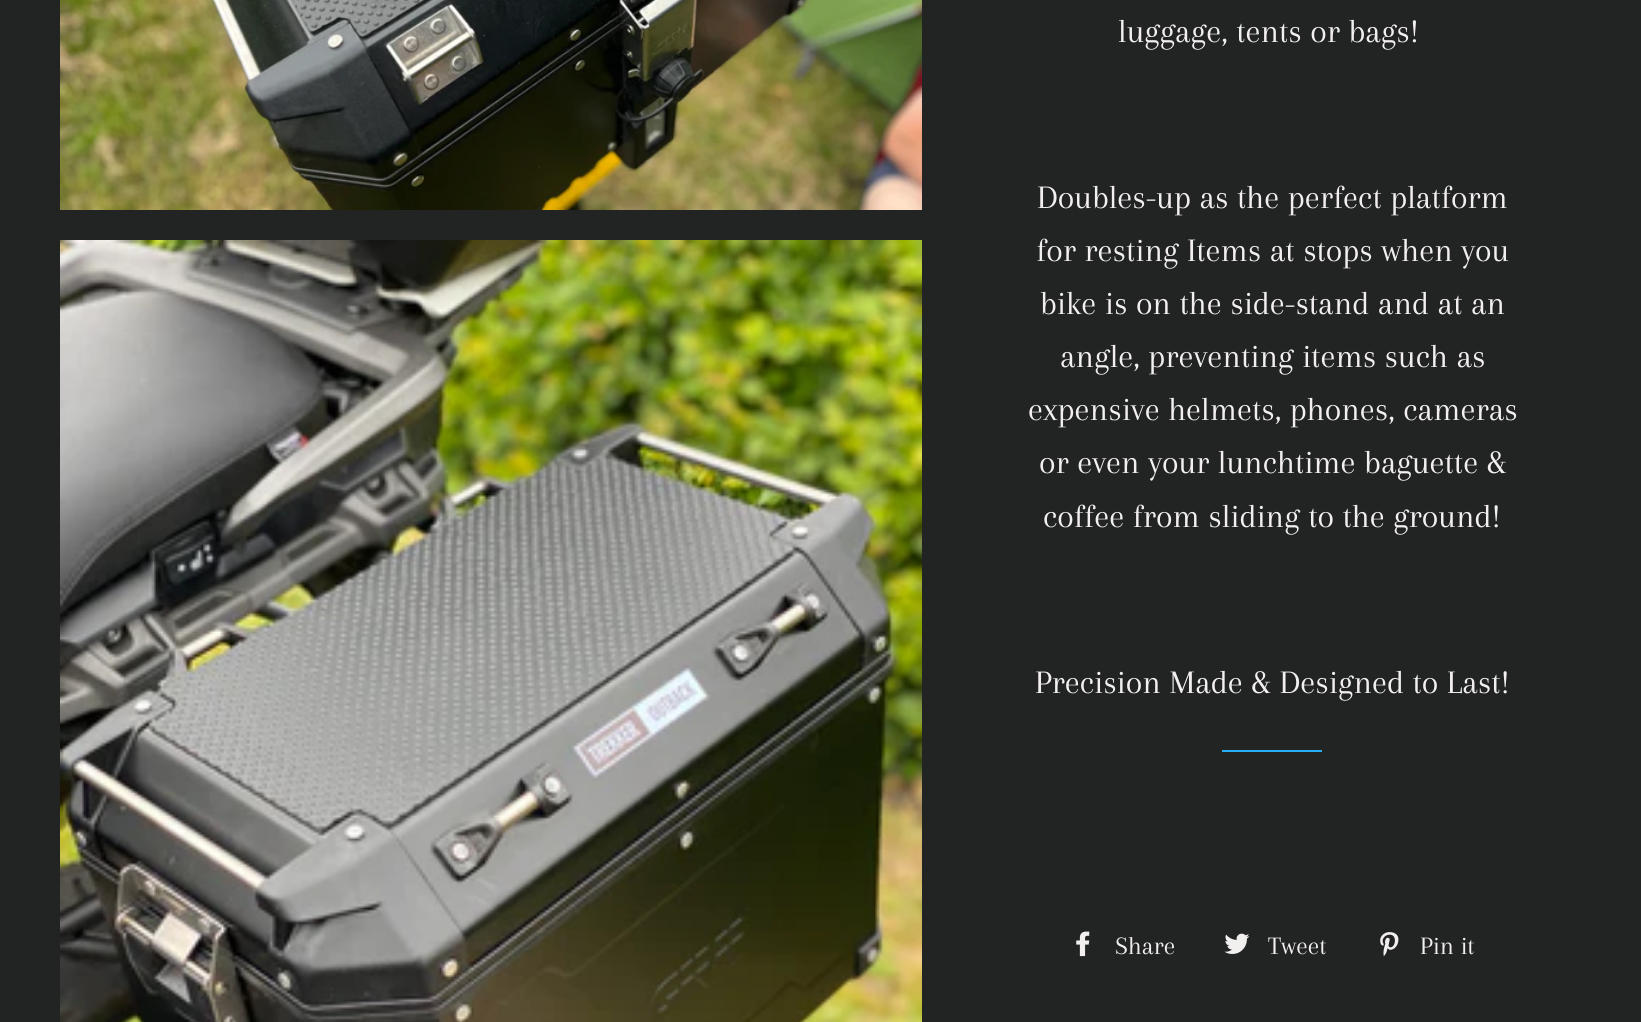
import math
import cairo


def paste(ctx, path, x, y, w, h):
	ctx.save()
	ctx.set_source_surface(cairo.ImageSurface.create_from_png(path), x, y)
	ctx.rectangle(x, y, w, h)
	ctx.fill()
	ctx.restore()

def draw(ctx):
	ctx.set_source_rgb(0.133, 0.137, 0.137)
	ctx.paint()
	paste(ctx, 'media/1.png', 60, 0, 862, 210)
	paste(ctx, 'media/2.png', 60, 240, 862, 782)
	ctx.select_font_face('Arapey')
	ctx.set_font_size(34)
	ctx.set_source_rgb(0.949, 0.937, 0.937)
	for x, y, s in [
		(1118, 42, 'luggage, tents or bags!'),
		(1037, 208, 'Doubles-up as the perfect platform'),
		(1036, 261, 'for resting Items at stops when you'),
		(1040, 314, 'bike is on the side-stand and at an'),
		(1060, 367, 'angle, preventing items such as'),
		(1028, 420, 'expensive helmets, phones, cameras'),
		(1039, 473, 'or even your lunchtime baguette &'),
		(1043, 527, 'coffee from sliding to the ground!'),
		(1035, 693, 'Precision Made & Designed to Last!'),
	]:
		ctx.move_to(x, y)
		ctx.show_text(s)
	ctx.set_source_rgb(0.157, 0.678, 0.969)
	ctx.rectangle(1222, 750, 100, 2)
	ctx.fill()
	paste(ctx, 'media/3.png', 1076, 931, 14, 26)
	ctx.set_font_size(26)
	ctx.set_source_rgb(0.949, 0.937, 0.937)
	ctx.move_to(1115, 954)
	ctx.show_text('Share')
	paste(ctx, 'media/4.png', 1224, 933, 26, 21)
	ctx.move_to(1268, 954)
	ctx.show_text('Tweet')
	paste(ctx, 'media/5.png', 1380, 932, 19, 24)
	ctx.move_to(1420, 954)
	ctx.show_text('Pin it')


surface = cairo.ImageSurface(cairo.FORMAT_RGB24, 1641, 1022)
ctx = cairo.Context(surface)
options = cairo.FontOptions()
options.set_hint_metrics(cairo.HINT_METRICS_OFF)
options.set_hint_style(cairo.HINT_STYLE_NONE)
ctx.set_font_options(options)
ctx.set_miter_limit(4)
draw(ctx)
surface.write_to_png('image.png')
